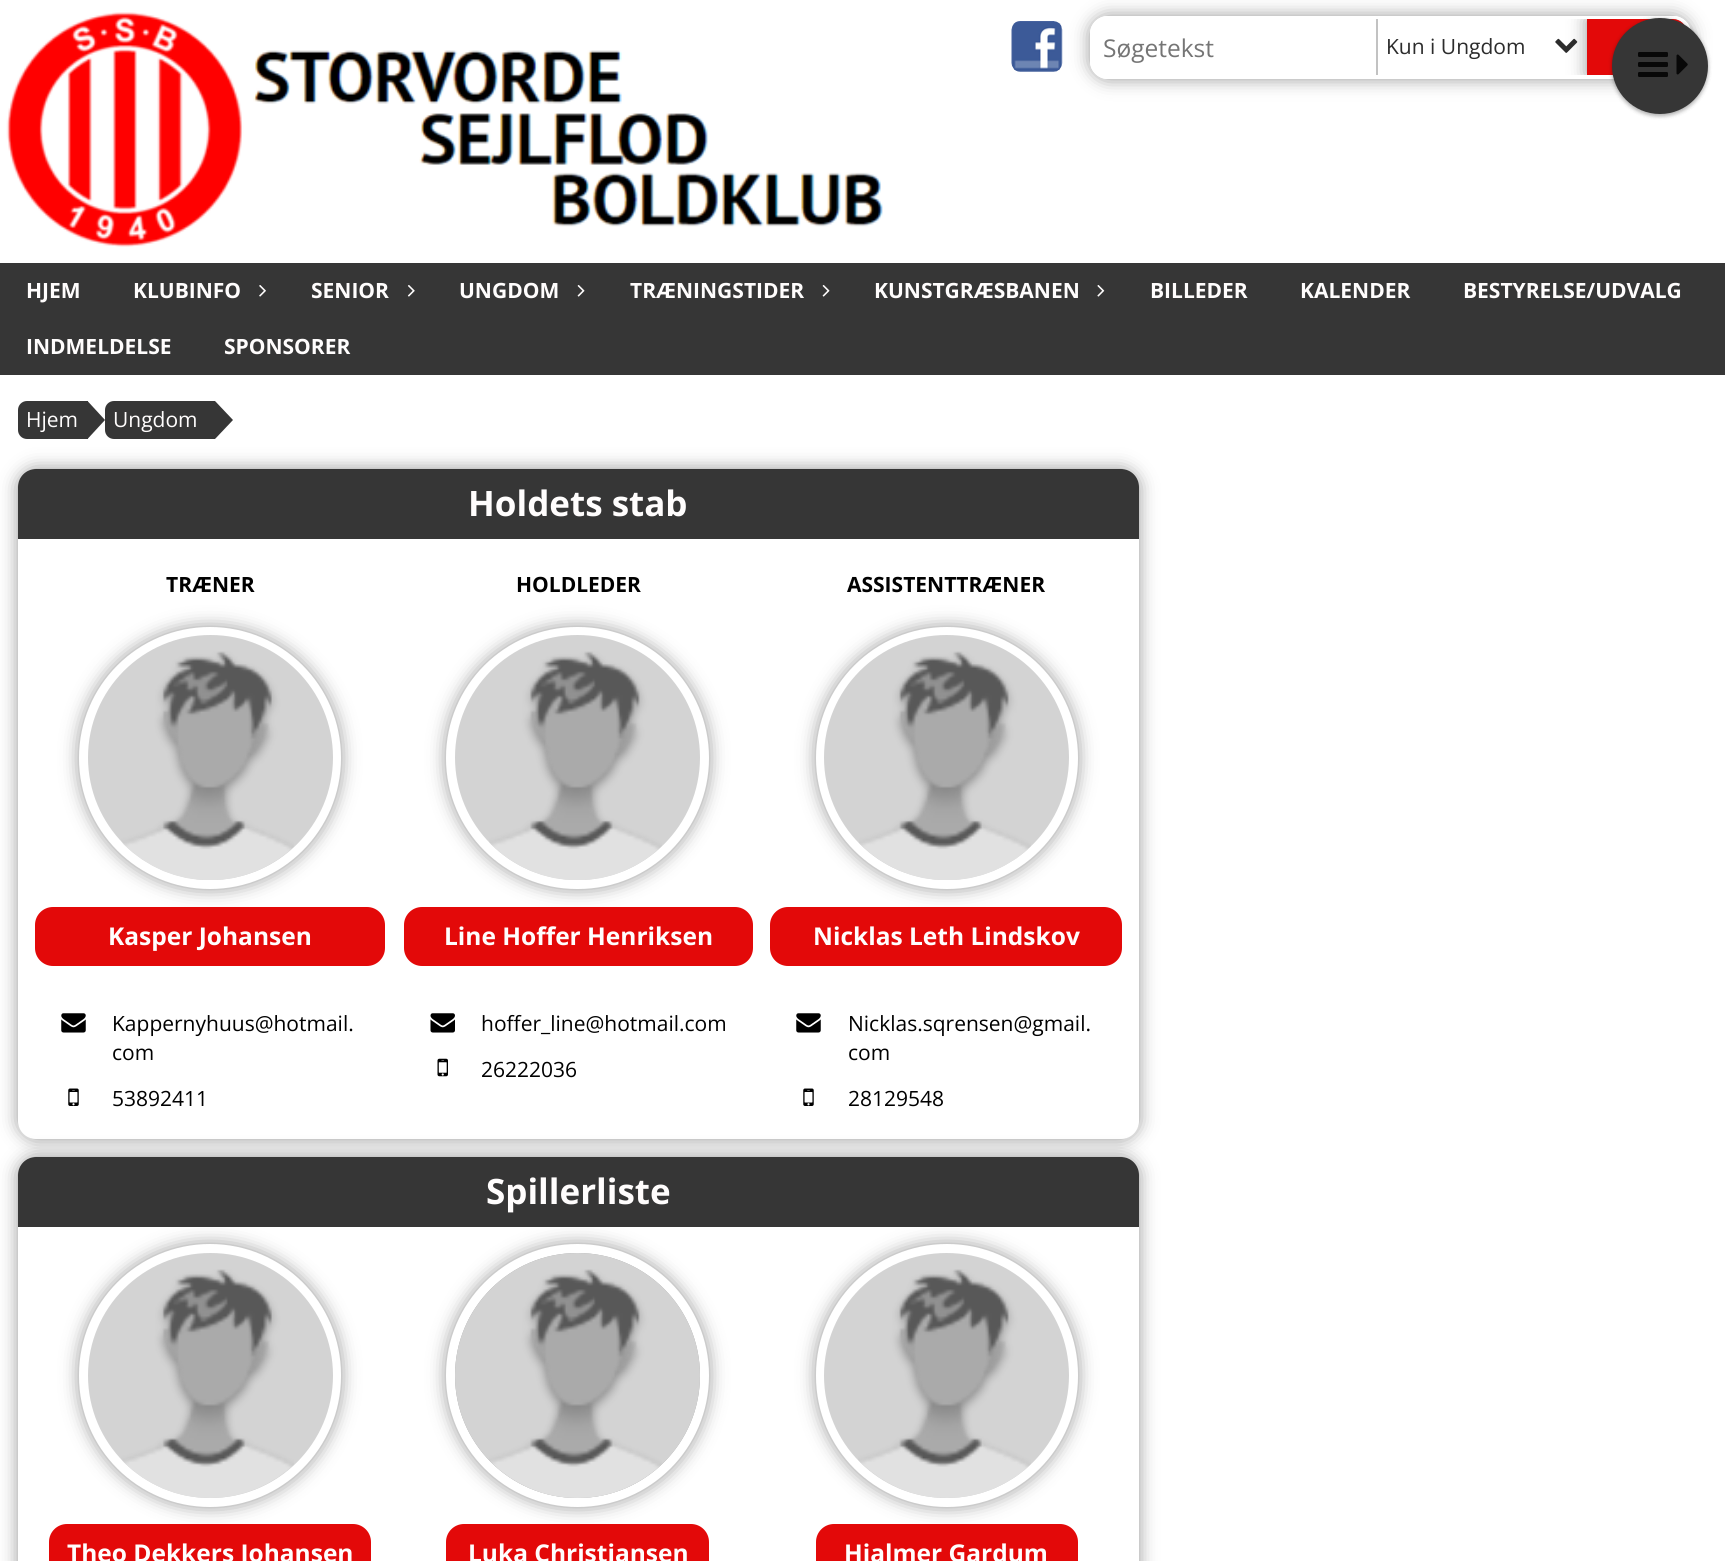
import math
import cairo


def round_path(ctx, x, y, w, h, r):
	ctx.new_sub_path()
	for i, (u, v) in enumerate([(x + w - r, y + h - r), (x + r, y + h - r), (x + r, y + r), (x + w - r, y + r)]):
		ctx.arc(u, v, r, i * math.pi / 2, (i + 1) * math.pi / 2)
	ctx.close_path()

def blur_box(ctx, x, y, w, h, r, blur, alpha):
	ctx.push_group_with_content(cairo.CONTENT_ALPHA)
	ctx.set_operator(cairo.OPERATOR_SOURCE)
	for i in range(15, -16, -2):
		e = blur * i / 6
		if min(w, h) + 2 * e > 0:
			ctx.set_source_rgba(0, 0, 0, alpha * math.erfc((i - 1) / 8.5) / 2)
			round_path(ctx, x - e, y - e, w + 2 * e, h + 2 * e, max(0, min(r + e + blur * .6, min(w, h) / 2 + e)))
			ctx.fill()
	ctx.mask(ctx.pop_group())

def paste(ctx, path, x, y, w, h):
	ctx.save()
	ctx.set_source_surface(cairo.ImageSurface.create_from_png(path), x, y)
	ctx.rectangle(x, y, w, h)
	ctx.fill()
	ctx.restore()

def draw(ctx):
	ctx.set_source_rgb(0.212, 0.212, 0.212)
	ctx.paint()
	ctx.set_source_rgb(1, 1, 1)
	ctx.rectangle(0, 0, 1725, 263)
	ctx.fill()
	paste(ctx, 'media/1.png', 6, 12, 877, 235)
	paste(ctx, 'media/2.png', 1011, 21, 52, 51)
	ctx.save()
	ctx.set_fill_rule(cairo.FILL_RULE_EVEN_ODD)
	ctx.new_path()
	ctx.move_to(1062, 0)
	ctx.line_to(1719, 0)
	ctx.line_to(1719, 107)
	ctx.line_to(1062, 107)
	ctx.close_path()
	ctx.move_to(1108, 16)
	ctx.line_to(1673, 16)
	ctx.curve_to(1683, 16, 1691, 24, 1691, 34)
	ctx.line_to(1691, 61)
	ctx.curve_to(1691, 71, 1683, 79, 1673, 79)
	ctx.line_to(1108, 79)
	ctx.curve_to(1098, 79, 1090, 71, 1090, 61)
	ctx.line_to(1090, 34)
	ctx.curve_to(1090, 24, 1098, 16, 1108, 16)
	ctx.close_path()
	ctx.clip()
	ctx.set_source_rgb(0.188, 0.188, 0.188)
	blur_box(ctx, 1090, 16, 601, 63, 18, 9, 0.5)
	ctx.restore()
	round_path(ctx, 1092, 18, 597, 59, 16)
	ctx.set_line_width(4)
	ctx.stroke()
	ctx.select_font_face('Open Sans')
	ctx.set_font_size(24.5)
	ctx.set_source_rgb(0.459, 0.459, 0.459)
	ctx.move_to(1103, 57)
	ctx.show_text('Søgetekst')
	ctx.set_source_rgb(0.761, 0.761, 0.761)
	ctx.rectangle(1376, 19, 2, 56)
	ctx.fill()
	ctx.set_font_size(21)
	ctx.set_source_rgb(0.173, 0.173, 0.173)
	ctx.move_to(1386, 54)
	ctx.show_text('Kun i Ungdom')
	paste(ctx, 'media/3.png', 1555, 38, 23, 15)
	ctx.save()
	round_path(ctx, 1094, 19, 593, 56, 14)
	ctx.clip()
	ctx.set_source_rgb(0.188, 0.188, 0.188)
	blur_box(ctx, 1587, 19, 100, 56, 0, 9, 0.5)
	ctx.restore()
	ctx.set_source_rgb(0.89, 0.039, 0.039)
	ctx.new_path()
	ctx.move_to(1587, 19)
	ctx.line_to(1673, 19)
	ctx.curve_to(1680.5, 19, 1687, 25.5, 1687, 33)
	ctx.line_to(1687, 61)
	ctx.curve_to(1687, 68.5, 1680.5, 75, 1673, 75)
	ctx.line_to(1587, 75)
	ctx.close_path()
	ctx.fill()
	ctx.set_source_rgb(0, 0, 0)
	blur_box(ctx, 1612, 19, 96, 97, 48, 2, 0.24)
	blur_box(ctx, 1612, 19, 96, 97, 48, 2.5, 0.12)
	ctx.set_source_rgb(0.212, 0.212, 0.212)
	ctx.arc(1660, 66, 48, 0, 2 * math.pi)
	ctx.fill()
	paste(ctx, 'media/4.png', 1638, 52, 30, 25)
	paste(ctx, 'media/5.png', 1676, 54, 12, 21)
	ctx.select_font_face('Open Sans', cairo.FONT_SLANT_NORMAL, cairo.FONT_WEIGHT_BOLD)
	ctx.set_source_rgb(1, 0.992, 0.992)
	ctx.move_to(26, 298)
	ctx.show_text('HJEM')
	ctx.move_to(133, 298)
	ctx.show_text('KLUBINFO')
	paste(ctx, 'media/6.png', 259, 285, 7, 12)
	ctx.move_to(311, 298)
	ctx.show_text('SENIOR')
	paste(ctx, 'media/7.png', 407, 285, 8, 12)
	ctx.move_to(459, 298)
	ctx.show_text('UNGDOM')
	paste(ctx, 'media/8.png', 577, 285, 8, 12)
	ctx.move_to(630, 298)
	ctx.show_text('TRÆNINGSTIDER')
	paste(ctx, 'media/8.png', 822, 285, 8, 12)
	ctx.move_to(874, 298)
	ctx.show_text('KUNSTGRÆSBANEN')
	paste(ctx, 'media/9.png', 1097, 285, 8, 12)
	for x, y, s in [
		(1150, 298, 'BILLEDER'),
		(1300, 298, 'KALENDER'),
		(1463, 298, 'BESTYRELSE/UDVALG'),
		(26, 354, 'INDMELDELSE'),
		(224, 354, 'SPONSORER'),
	]:
		ctx.move_to(x, y)
		ctx.show_text(s)
	ctx.set_source_rgb(1, 1, 1)
	ctx.rectangle(0, 375, 1725, 1186)
	ctx.fill()
	ctx.set_source_rgb(0.212, 0.212, 0.212)
	ctx.new_path()
	ctx.move_to(27, 401)
	ctx.line_to(88, 401)
	ctx.line_to(88, 439)
	ctx.line_to(27, 439)
	ctx.curve_to(22, 439, 18, 435, 18, 430)
	ctx.line_to(18, 410)
	ctx.curve_to(18, 405, 22, 401, 27, 401)
	ctx.close_path()
	ctx.fill()
	ctx.select_font_face('Open Sans')
	ctx.set_source_rgb(1, 0.992, 0.992)
	ctx.move_to(26, 427)
	ctx.show_text('Hjem')
	ctx.set_source_rgb(0.212, 0.212, 0.212)
	ctx.new_path()
	ctx.move_to(87.5, 439)
	ctx.line_to(87.5, 401)
	ctx.line_to(105, 420)
	ctx.close_path()
	ctx.fill()
	ctx.new_path()
	ctx.move_to(114, 401)
	ctx.line_to(215, 401)
	ctx.line_to(215, 439)
	ctx.line_to(114, 439)
	ctx.curve_to(109, 439, 105, 435, 105, 430)
	ctx.line_to(105, 410)
	ctx.curve_to(105, 405, 109, 401, 114, 401)
	ctx.close_path()
	ctx.fill()
	ctx.set_source_rgb(1, 0.992, 0.992)
	ctx.move_to(113, 427)
	ctx.show_text('Ungdom')
	ctx.set_source_rgb(0.212, 0.212, 0.212)
	ctx.new_path()
	ctx.move_to(215, 439)
	ctx.line_to(215, 401)
	ctx.line_to(233, 420)
	ctx.close_path()
	ctx.fill()
	ctx.set_source_rgb(0.188, 0.188, 0.188)
	blur_box(ctx, 18, 469, 1121, 670, 18, 9, 0.5)
	ctx.set_source_rgb(1, 1, 1)
	round_path(ctx, 18, 469, 1121, 670, 18)
	ctx.fill()
	ctx.set_source_rgb(0.212, 0.212, 0.212)
	ctx.new_path()
	ctx.move_to(36, 469)
	ctx.line_to(1121, 469)
	ctx.curve_to(1131, 469, 1139, 477, 1139, 487)
	ctx.line_to(1139, 539)
	ctx.line_to(18, 539)
	ctx.line_to(18, 487)
	ctx.curve_to(18, 477, 26, 469, 36, 469)
	ctx.close_path()
	ctx.fill()
	ctx.select_font_face('Open Sans', cairo.FONT_SLANT_NORMAL, cairo.FONT_WEIGHT_BOLD)
	ctx.set_font_size(35)
	ctx.set_source_rgb(1, 0.992, 0.992)
	ctx.move_to(468, 516)
	ctx.show_text('Holdets stab')
	ctx.set_font_size(21)
	ctx.set_source_rgb(0, 0, 0)
	ctx.move_to(166, 592)
	ctx.show_text('TRÆNER')
	ctx.set_source_rgb(0.188, 0.188, 0.188)
	blur_box(ctx, 79, 627, 262, 262, 131, 9, 0.5)
	ctx.set_source_rgb(1, 1, 1)
	ctx.arc(210, 758, 126.5, 0, 2 * math.pi)
	ctx.fill_preserve()
	ctx.set_line_width(9)
	ctx.stroke()
	ctx.set_source_rgb(0.827, 0.827, 0.827)
	ctx.arc(210.5, 757.5, 122.5, 0, 2 * math.pi)
	ctx.fill()
	paste(ctx, 'media/10.png', 121, 651, 173, 229)
	ctx.set_source_rgb(0.89, 0.039, 0.039)
	round_path(ctx, 35, 907, 350, 59, 18)
	ctx.fill()
	ctx.set_font_size(24.5)
	ctx.set_source_rgb(1, 0.992, 0.992)
	ctx.move_to(108, 945)
	ctx.show_text('Kasper Johansen')
	paste(ctx, 'media/11.png', 61, 1013, 25, 20)
	ctx.select_font_face('Open Sans')
	ctx.set_font_size(21)
	ctx.set_source_rgb(0, 0, 0)
	ctx.move_to(112, 1031)
	ctx.show_text('Kappernyhuus@hotmail.')
	ctx.move_to(112, 1060)
	ctx.show_text('com')
	paste(ctx, 'media/12.png', 68, 1088, 11, 18)
	ctx.move_to(112, 1106)
	ctx.show_text('53892411')
	ctx.select_font_face('Open Sans', cairo.FONT_SLANT_NORMAL, cairo.FONT_WEIGHT_BOLD)
	ctx.move_to(516, 592)
	ctx.show_text('HOLDLEDER')
	ctx.set_source_rgb(0.188, 0.188, 0.188)
	blur_box(ctx, 446, 627, 263, 262, 131, 9, 0.5)
	ctx.set_source_rgb(1, 1, 1)
	round_path(ctx, 450.5, 631.5, 254, 253, 126.5)
	ctx.fill_preserve()
	ctx.stroke()
	ctx.set_source_rgb(0.827, 0.827, 0.827)
	ctx.arc(577.5, 757.5, 122.5, 0, 2 * math.pi)
	ctx.fill()
	paste(ctx, 'media/13.png', 489, 651, 173, 229)
	ctx.set_source_rgb(0.89, 0.039, 0.039)
	round_path(ctx, 404, 907, 349, 59, 18)
	ctx.fill()
	ctx.set_font_size(24.5)
	ctx.set_source_rgb(1, 0.992, 0.992)
	ctx.move_to(444, 945)
	ctx.show_text('Line Hoffer Henriksen')
	paste(ctx, 'media/14.png', 430, 1013, 25, 20)
	ctx.select_font_face('Open Sans')
	ctx.set_font_size(21)
	ctx.set_source_rgb(0, 0, 0)
	ctx.move_to(481, 1031)
	ctx.show_text('hoffer_line@hotmail.com')
	paste(ctx, 'media/15.png', 437, 1058, 11, 19)
	ctx.move_to(481, 1077)
	ctx.show_text('26222036')
	ctx.select_font_face('Open Sans', cairo.FONT_SLANT_NORMAL, cairo.FONT_WEIGHT_BOLD)
	ctx.move_to(847, 592)
	ctx.show_text('ASSISTENTTRÆNER')
	ctx.set_source_rgb(0.188, 0.188, 0.188)
	blur_box(ctx, 816, 627, 262, 262, 131, 9, 0.5)
	ctx.set_source_rgb(1, 1, 1)
	ctx.arc(947, 758, 126.5, 0, 2 * math.pi)
	ctx.fill_preserve()
	ctx.stroke()
	ctx.set_source_rgb(0.827, 0.827, 0.827)
	ctx.arc(946.5, 757.5, 122.5, 0, 2 * math.pi)
	ctx.fill()
	paste(ctx, 'media/16.png', 859, 651, 172, 229)
	ctx.set_source_rgb(0.89, 0.039, 0.039)
	round_path(ctx, 770, 907, 352, 59, 18)
	ctx.fill()
	ctx.set_font_size(24.5)
	ctx.set_source_rgb(1, 0.992, 0.992)
	ctx.move_to(813, 945)
	ctx.show_text('Nicklas Leth Lindskov')
	paste(ctx, 'media/11.png', 796, 1013, 25, 20)
	ctx.select_font_face('Open Sans')
	ctx.set_font_size(21)
	ctx.set_source_rgb(0, 0, 0)
	ctx.move_to(848, 1031)
	ctx.show_text('Nicklas.sqrensen@gmail.')
	ctx.move_to(848, 1060)
	ctx.show_text('com')
	paste(ctx, 'media/12.png', 803, 1088, 11, 18)
	ctx.move_to(848, 1106)
	ctx.show_text('28129548')
	ctx.set_source_rgb(0.188, 0.188, 0.188)
	blur_box(ctx, 18, 1157, 1121, 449, 18, 9, 0.5)
	ctx.set_source_rgb(1, 1, 1)
	round_path(ctx, 18, 1157, 1121, 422, 18)
	ctx.fill()
	ctx.set_source_rgb(0.212, 0.212, 0.212)
	ctx.new_path()
	ctx.move_to(36, 1157)
	ctx.line_to(1121, 1157)
	ctx.curve_to(1131, 1157, 1139, 1165, 1139, 1175)
	ctx.line_to(1139, 1227)
	ctx.line_to(18, 1227)
	ctx.line_to(18, 1175)
	ctx.curve_to(18, 1165, 26, 1157, 36, 1157)
	ctx.close_path()
	ctx.fill()
	ctx.select_font_face('Open Sans', cairo.FONT_SLANT_NORMAL, cairo.FONT_WEIGHT_BOLD)
	ctx.set_font_size(35)
	ctx.set_source_rgb(1, 0.992, 0.992)
	ctx.move_to(486, 1204)
	ctx.show_text('Spillerliste')
	ctx.set_source_rgb(0.188, 0.188, 0.188)
	blur_box(ctx, 79, 1244, 262, 263, 131, 9, 0.5)
	ctx.set_source_rgb(1, 1, 1)
	round_path(ctx, 83.5, 1248.5, 253, 254, 126.5)
	ctx.fill_preserve()
	ctx.stroke()
	ctx.set_source_rgb(0.827, 0.827, 0.827)
	ctx.arc(210.5, 1375.5, 122.5, 0, 2 * math.pi)
	ctx.fill()
	paste(ctx, 'media/17.png', 121, 1269, 173, 229)
	ctx.set_source_rgb(0.89, 0.039, 0.039)
	round_path(ctx, 49, 1524, 322, 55, 18)
	ctx.fill()
	ctx.set_font_size(24.5)
	ctx.set_source_rgb(1, 0.992, 0.992)
	ctx.move_to(67, 1562)
	ctx.show_text('Theo Dekkers Johansen')
	ctx.set_source_rgb(0.188, 0.188, 0.188)
	blur_box(ctx, 446, 1244, 263, 263, 131.5, 9, 0.5)
	ctx.arc(577.5, 1375.5, 127, 0, 2 * math.pi)
	ctx.set_source_rgb(1, 1, 1)
	ctx.stroke()
	ctx.set_source_rgb(0.827, 0.827, 0.827)
	ctx.arc(577.5, 1375.5, 122.5, 0, 2 * math.pi)
	ctx.fill()
	paste(ctx, 'media/18.png', 489, 1269, 173, 229)
	ctx.set_source_rgb(0.89, 0.039, 0.039)
	round_path(ctx, 446, 1524, 263, 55, 18)
	ctx.fill()
	ctx.set_source_rgb(1, 0.992, 0.992)
	ctx.move_to(468, 1562)
	ctx.show_text('Luka Christiansen')
	ctx.set_source_rgb(0.188, 0.188, 0.188)
	blur_box(ctx, 816, 1244, 262, 263, 131, 9, 0.5)
	ctx.set_source_rgb(1, 1, 1)
	round_path(ctx, 820.5, 1248.5, 253, 254, 126.5)
	ctx.fill_preserve()
	ctx.stroke()
	ctx.set_source_rgb(0.827, 0.827, 0.827)
	ctx.arc(946.5, 1375.5, 122.5, 0, 2 * math.pi)
	ctx.fill()
	paste(ctx, 'media/19.png', 858, 1269, 173, 229)
	ctx.set_source_rgb(0.89, 0.039, 0.039)
	round_path(ctx, 816, 1524, 262, 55, 18)
	ctx.fill()
	ctx.set_source_rgb(1, 0.992, 0.992)
	ctx.move_to(844, 1562)
	ctx.show_text('Hjalmer Gardum')


surface = cairo.ImageSurface(cairo.FORMAT_RGB24, 1725, 1561)
ctx = cairo.Context(surface)
options = cairo.FontOptions()
options.set_hint_metrics(cairo.HINT_METRICS_OFF)
options.set_hint_style(cairo.HINT_STYLE_NONE)
ctx.set_font_options(options)
ctx.set_miter_limit(4)
draw(ctx)
surface.write_to_png('image.png')
